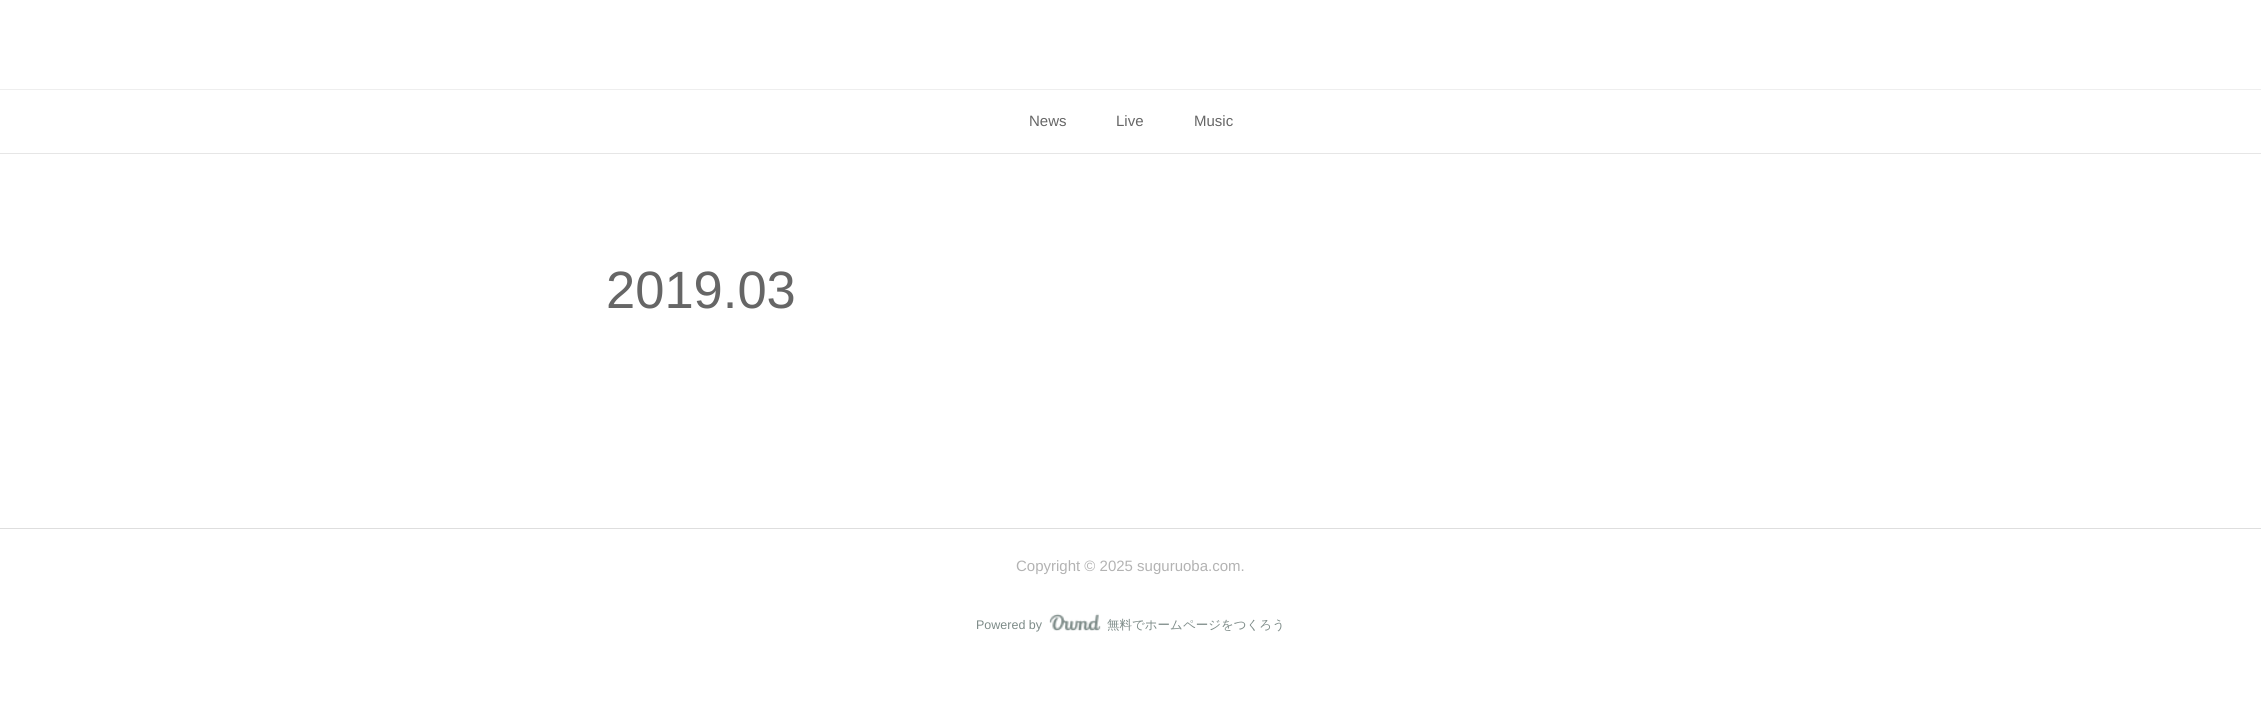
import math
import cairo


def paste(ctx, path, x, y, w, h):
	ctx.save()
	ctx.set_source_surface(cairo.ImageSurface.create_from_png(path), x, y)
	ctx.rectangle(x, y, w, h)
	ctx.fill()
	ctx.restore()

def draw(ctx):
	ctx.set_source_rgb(1, 1, 1)
	ctx.paint()
	ctx.set_source_rgb(0.933, 0.933, 0.933)
	ctx.rectangle(0, 89, 2261, 1)
	ctx.fill()
	ctx.set_source_rgb(0.902, 0.902, 0.902)
	ctx.rectangle(0, 153, 2261, 1)
	ctx.fill()
	ctx.select_font_face('Liberation Sans')
	ctx.set_font_size(15)
	ctx.set_source_rgb(0.4, 0.4, 0.4)
	for x, y, s in [
		(1029, 126, 'News'),
		(1116, 126, 'Live'),
		(1194, 126, 'Music'),
	]:
		ctx.move_to(x, y)
		ctx.show_text(s)
	ctx.set_font_size(52.5)
	ctx.move_to(606, 308)
	ctx.show_text('2019.03')
	ctx.set_source_rgb(0.871, 0.871, 0.871)
	ctx.rectangle(0, 528, 2261, 1)
	ctx.fill()
	ctx.set_font_size(15)
	ctx.set_source_rgb(0.702, 0.702, 0.702)
	ctx.move_to(1016, 571)
	ctx.show_text('Copyright © 2025 suguruoba.com.')
	ctx.set_font_size(12.5)
	ctx.set_source_rgb(0.49, 0.545, 0.533)
	ctx.move_to(976, 629)
	ctx.show_text('Powered by')
	paste(ctx, 'media/1.png', 1049, 613, 52, 18)
	ctx.select_font_face('WenQuanYi Zen Hei Medium')
	ctx.move_to(1107, 629)
	ctx.show_text('無料でホームページをつくろう')


surface = cairo.ImageSurface(cairo.FORMAT_RGB24, 2261, 703)
ctx = cairo.Context(surface)
options = cairo.FontOptions()
options.set_hint_metrics(cairo.HINT_METRICS_OFF)
options.set_hint_style(cairo.HINT_STYLE_NONE)
ctx.set_font_options(options)
ctx.set_miter_limit(4)
draw(ctx)
surface.write_to_png('image.png')
